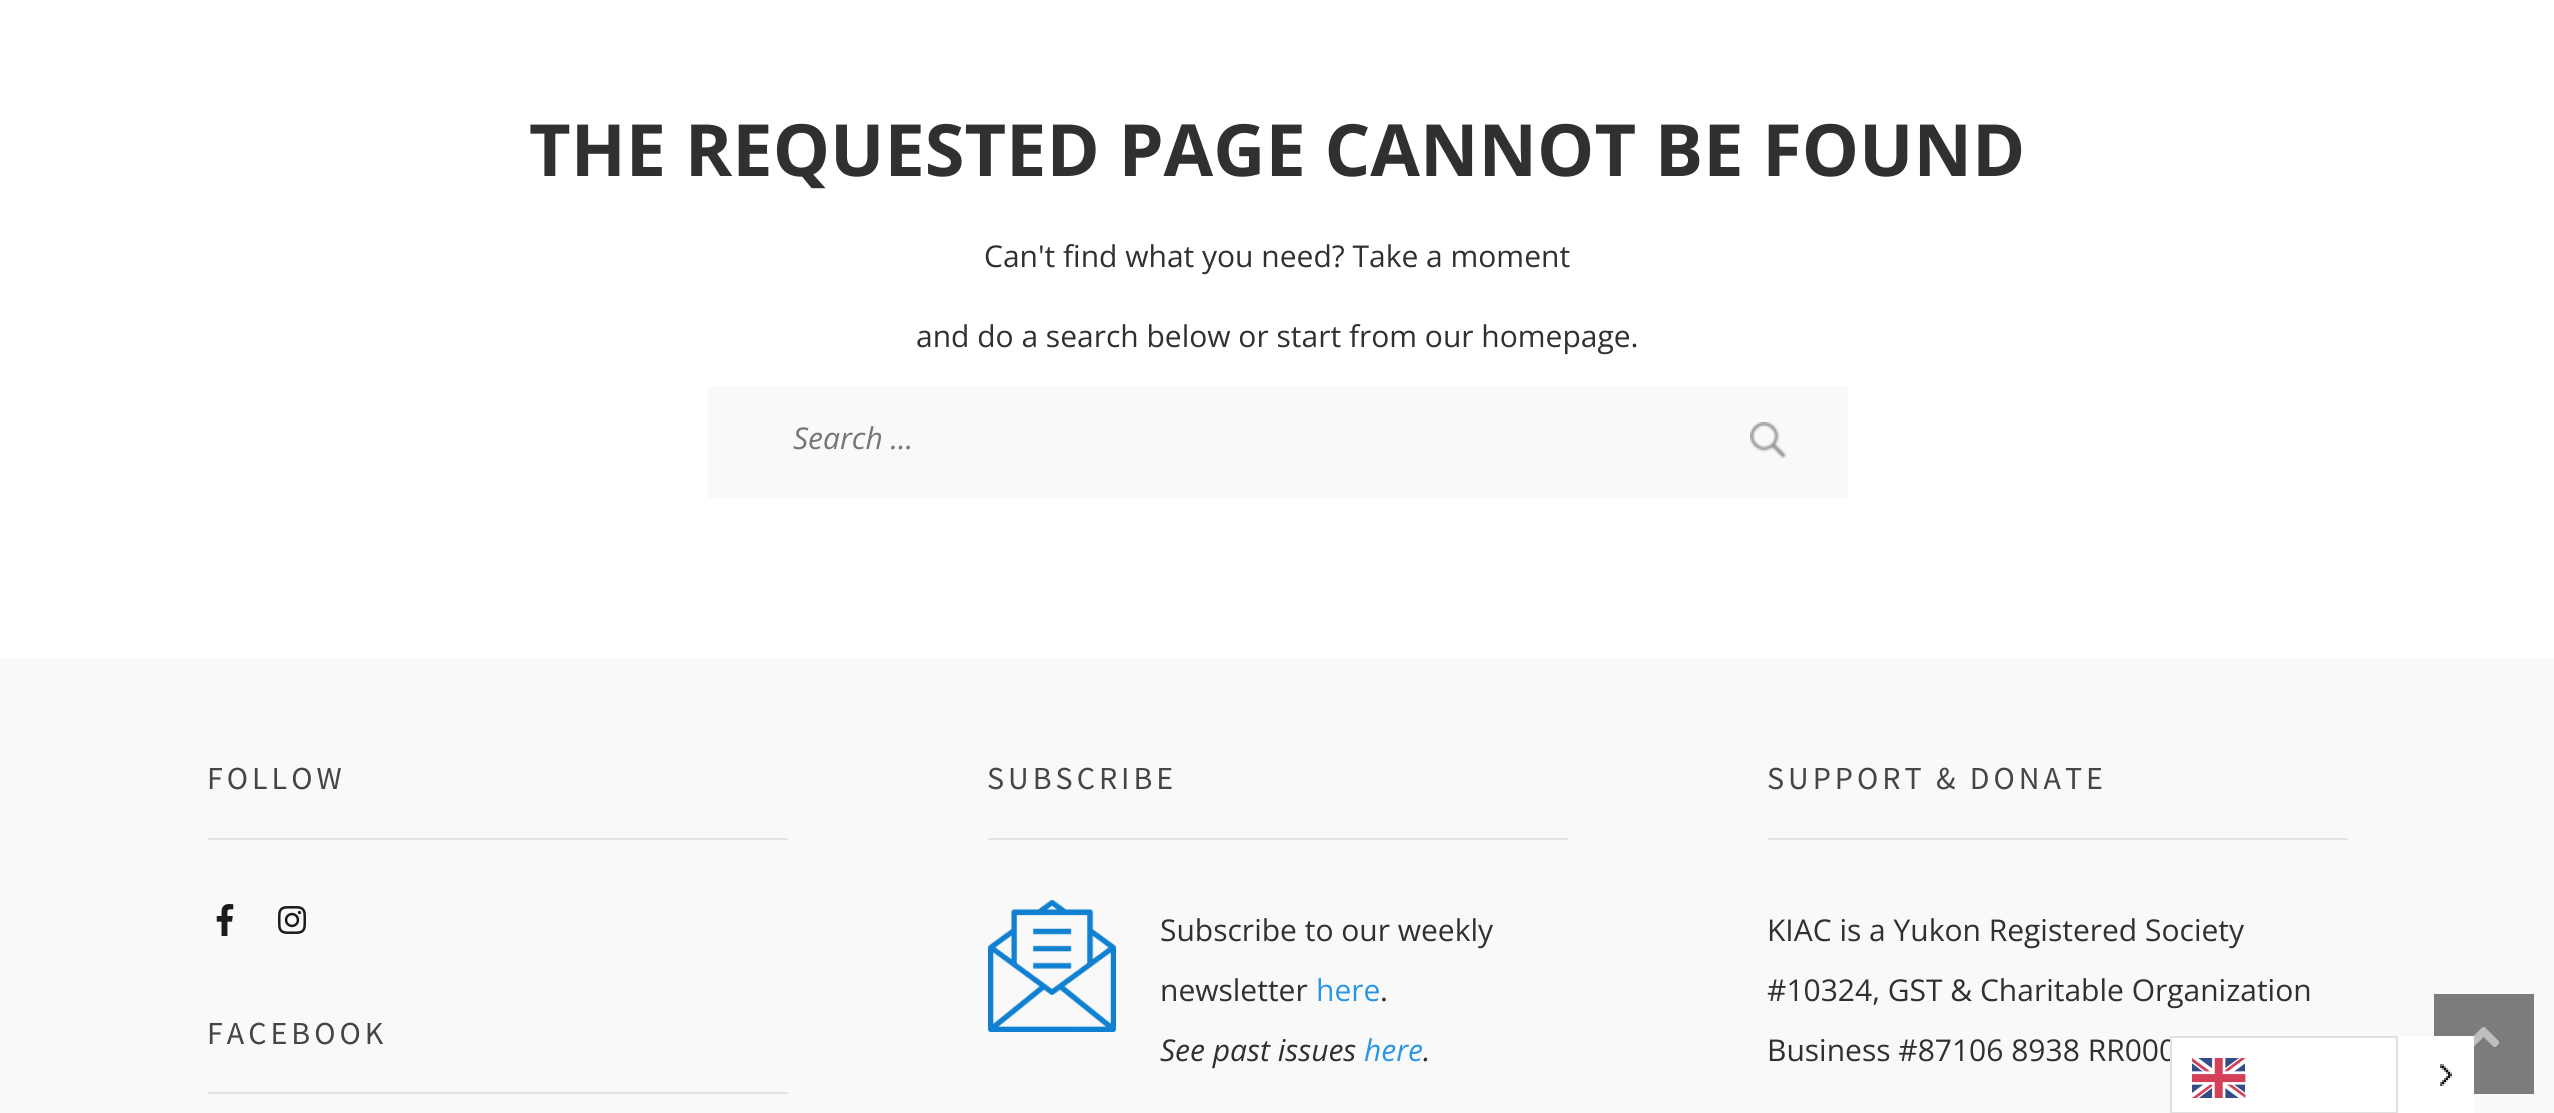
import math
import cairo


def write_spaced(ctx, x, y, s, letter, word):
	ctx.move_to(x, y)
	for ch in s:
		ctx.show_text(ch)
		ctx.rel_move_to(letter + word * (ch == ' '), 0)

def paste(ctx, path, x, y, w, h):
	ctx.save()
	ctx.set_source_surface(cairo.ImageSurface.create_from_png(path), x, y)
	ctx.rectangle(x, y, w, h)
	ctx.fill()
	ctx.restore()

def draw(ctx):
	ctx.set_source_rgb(1, 1, 1)
	ctx.paint()
	ctx.select_font_face('Open Sans', cairo.FONT_SLANT_NORMAL, cairo.FONT_WEIGHT_BOLD)
	ctx.set_font_size(72)
	ctx.set_source_rgb(0.188, 0.188, 0.188)
	ctx.move_to(529, 176)
	ctx.show_text('THE REQUESTED PAGE CANNOT BE FOUND')
	ctx.select_font_face('Open Sans')
	ctx.set_font_size(30)
	ctx.move_to(984, 267)
	ctx.show_text('Can\'t find what you need? Take a moment')
	ctx.move_to(916, 347)
	ctx.show_text('and do a search below or start from our homepage.')
	ctx.set_source_rgb(0.973, 0.973, 0.973)
	ctx.rectangle(708, 386, 1140, 112)
	ctx.fill()
	ctx.select_font_face('Open Sans', cairo.FONT_SLANT_ITALIC)
	ctx.set_source_rgb(0.459, 0.459, 0.459)
	ctx.move_to(793, 449)
	ctx.show_text('Search …')
	paste(ctx, 'media/1.png', 1750, 422, 36, 36)
	ctx.set_source_rgb(0.973, 0.973, 0.973)
	ctx.rectangle(0, 658, 2554, 455)
	ctx.fill()
	ctx.set_source_rgb(0.89, 0.89, 0.89)
	ctx.rectangle(208, 838, 580, 2)
	ctx.fill()
	ctx.select_font_face('Source Sans Pro')
	ctx.set_font_size(32)
	ctx.set_source_rgb(0.271, 0.271, 0.271)
	write_spaced(ctx, 207, 789, 'FOLLOW', 4, 0)
	paste(ctx, 'media/2.png', 216, 904, 18, 32)
	paste(ctx, 'media/3.png', 278, 906, 28, 28)
	ctx.set_source_rgb(0.89, 0.89, 0.89)
	ctx.rectangle(208, 1092, 580, 2)
	ctx.fill()
	ctx.set_source_rgb(0.271, 0.271, 0.271)
	write_spaced(ctx, 207, 1044, 'FACEBOOK', 4, 0)
	ctx.set_source_rgb(0.89, 0.89, 0.89)
	ctx.rectangle(988, 838, 580, 2)
	ctx.fill()
	ctx.set_source_rgb(0.271, 0.271, 0.271)
	write_spaced(ctx, 987, 789, 'SUBSCRIBE', 4, 0)
	paste(ctx, 'media/4.png', 988, 900, 128, 132)
	ctx.select_font_face('Open Sans')
	ctx.set_font_size(30)
	ctx.set_source_rgb(0.188, 0.188, 0.188)
	ctx.move_to(1160, 941)
	ctx.show_text('Subscribe to our weekly')
	ctx.move_to(1160, 1001)
	ctx.show_text('newsletter')
	ctx.set_source_rgb(0.165, 0.588, 0.89)
	ctx.move_to(1316, 1001)
	ctx.show_text('here')
	ctx.set_source_rgb(0.188, 0.188, 0.188)
	ctx.move_to(1380, 1001)
	ctx.show_text('.')
	ctx.select_font_face('Open Sans', cairo.FONT_SLANT_ITALIC)
	ctx.move_to(1160, 1061)
	ctx.show_text('See past issues')
	ctx.set_source_rgb(0.165, 0.588, 0.89)
	ctx.move_to(1364, 1061)
	ctx.show_text('here')
	ctx.set_source_rgb(0.188, 0.188, 0.188)
	ctx.move_to(1423, 1061)
	ctx.show_text('.')
	ctx.set_source_rgb(0.89, 0.89, 0.89)
	ctx.rectangle(1768, 838, 580, 2)
	ctx.fill()
	ctx.select_font_face('Source Sans Pro')
	ctx.set_font_size(32)
	ctx.set_source_rgb(0.271, 0.271, 0.271)
	write_spaced(ctx, 1767, 789, 'SUPPORT & DONATE', 4, 0)
	ctx.select_font_face('Open Sans')
	ctx.set_font_size(30)
	ctx.set_source_rgb(0.188, 0.188, 0.188)
	for x, y, s in [
		(1767, 941, 'KIAC is a Yukon Registered Society'),
		(1767, 1001, '#10324, GST & Charitable Organization'),
		(1767, 1061, 'Business #87106 8938 RR000'),
	]:
		ctx.move_to(x, y)
		ctx.show_text(s)
	ctx.set_source_rgb(0.486, 0.486, 0.486)
	ctx.rectangle(2434, 994, 100, 100)
	ctx.fill()
	paste(ctx, 'media/5.png', 2473, 1027, 27, 20)
	ctx.set_source_rgb(1, 1, 1)
	ctx.rectangle(2172, 1036, 302, 77)
	ctx.fill()
	ctx.rectangle(2171, 1037, 226, 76)
	ctx.set_source_rgb(0.878, 0.878, 0.878)
	ctx.stroke()
	paste(ctx, 'media/6.png', 2192, 1058, 54, 40)
	paste(ctx, 'media/7.png', 2440, 1064, 12, 22)


surface = cairo.ImageSurface(cairo.FORMAT_RGB24, 2554, 1113)
ctx = cairo.Context(surface)
options = cairo.FontOptions()
options.set_hint_metrics(cairo.HINT_METRICS_OFF)
options.set_hint_style(cairo.HINT_STYLE_NONE)
ctx.set_font_options(options)
ctx.set_miter_limit(4)
draw(ctx)
surface.write_to_png('image.png')
